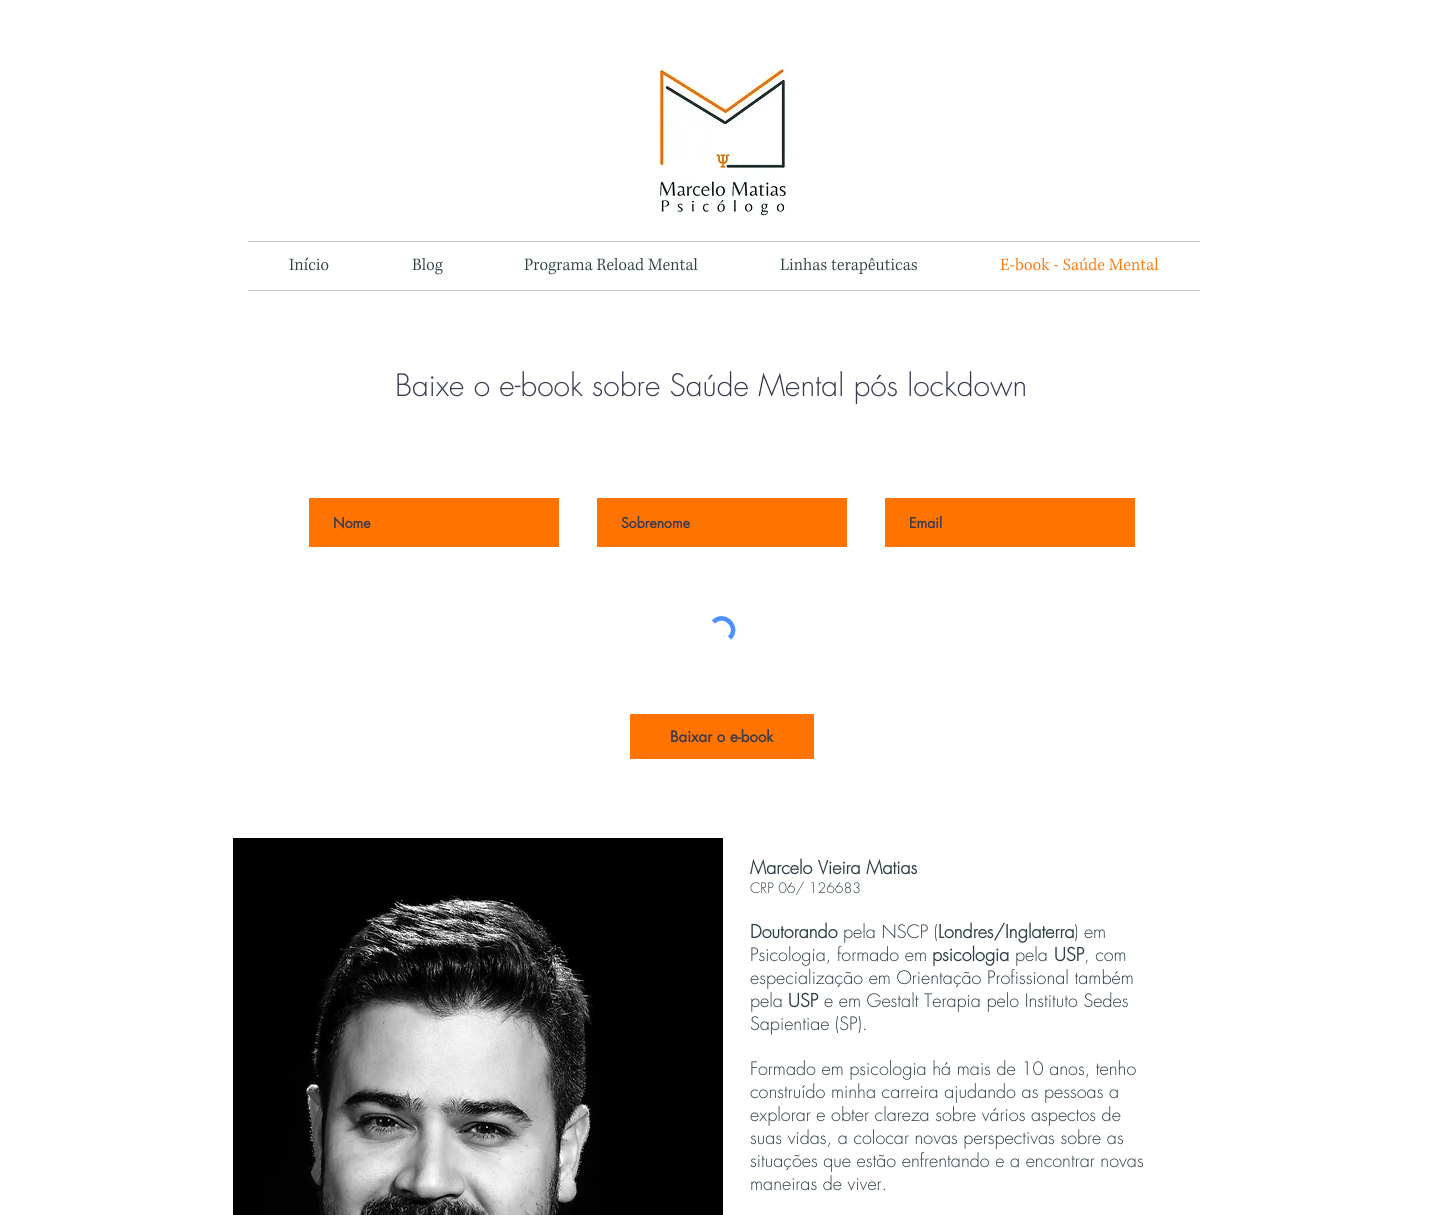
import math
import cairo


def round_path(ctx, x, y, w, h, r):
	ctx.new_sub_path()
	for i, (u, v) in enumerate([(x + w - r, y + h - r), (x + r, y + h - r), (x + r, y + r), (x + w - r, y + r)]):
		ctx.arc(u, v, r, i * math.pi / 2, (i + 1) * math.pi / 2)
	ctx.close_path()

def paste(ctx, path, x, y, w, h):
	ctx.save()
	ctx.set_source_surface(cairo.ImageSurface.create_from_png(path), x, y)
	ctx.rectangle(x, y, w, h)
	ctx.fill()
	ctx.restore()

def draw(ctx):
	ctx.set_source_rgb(1, 1, 1)
	ctx.paint()
	paste(ctx, 'media/1.png', 659, 64, 129, 152)
	ctx.set_source_rgb(0.792, 0.792, 0.792)
	ctx.rectangle(248, 241, 952, 1)
	ctx.fill()
	ctx.rectangle(248, 290, 952, 1)
	ctx.fill()
	paste(ctx, 'media/2.png', 289, 257, 40, 14)
	paste(ctx, 'media/3.png', 412, 258, 31, 17)
	paste(ctx, 'media/4.png', 524, 257, 174, 18)
	paste(ctx, 'media/5.png', 780, 257, 137, 18)
	paste(ctx, 'media/6.png', 1000, 257, 159, 14)
	ctx.select_font_face('futura Light')
	ctx.set_font_size(30)
	ctx.set_source_rgb(0.216, 0.231, 0.302)
	ctx.move_to(395, 396)
	ctx.show_text('Baixe o e-book sobre Saúde Mental pós lockdown')
	ctx.set_source_rgb(1, 0.451, 0)
	ctx.rectangle(309, 498, 250, 49)
	ctx.fill()
	ctx.select_font_face('futura', cairo.FONT_SLANT_NORMAL, cairo.FONT_WEIGHT_BOLD)
	ctx.set_font_size(14)
	ctx.set_source_rgb(0.216, 0.231, 0.302)
	ctx.move_to(333, 528)
	ctx.show_text('Nome')
	ctx.set_source_rgb(1, 0.451, 0)
	ctx.rectangle(597, 498, 250, 49)
	ctx.fill()
	ctx.set_source_rgb(0.216, 0.231, 0.302)
	ctx.move_to(621, 528)
	ctx.show_text('Sobrenome')
	ctx.set_source_rgb(1, 0.451, 0)
	ctx.rectangle(885, 498, 250, 49)
	ctx.fill()
	ctx.set_source_rgb(0.216, 0.231, 0.302)
	ctx.move_to(909, 528)
	ctx.show_text('Email')
	ctx.new_path()
	ctx.move_to(713.5, 622)
	ctx.curve_to(724, 611, 740.5, 627.5, 729.5, 638)
	ctx.set_source_rgb(0.302, 0.565, 0.996)
	ctx.set_line_width(4.6)
	ctx.stroke()
	ctx.set_source_rgb(1, 0.451, 0)
	round_path(ctx, 628.5, 712.5, 187, 48, 2.5)
	ctx.fill_preserve()
	ctx.set_source_rgb(1, 1, 1)
	ctx.set_line_width(3)
	ctx.stroke()
	ctx.set_font_size(15)
	ctx.set_source_rgb(0.216, 0.231, 0.302)
	ctx.move_to(670, 742)
	ctx.show_text('Baixar o e-book')
	paste(ctx, 'media/7.png', 233, 838, 490, 377)
	ctx.select_font_face('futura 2', cairo.FONT_SLANT_NORMAL, cairo.FONT_WEIGHT_BOLD)
	ctx.set_font_size(18)
	ctx.set_source_rgb(0.173, 0.235, 0.267)
	ctx.move_to(750, 874)
	ctx.show_text('Marcelo Vieira Matias')
	ctx.select_font_face('futura Light')
	ctx.set_font_size(14)
	ctx.move_to(750, 893)
	ctx.show_text('CRP 06/ 126683')
	ctx.select_font_face('futura 2', cairo.FONT_SLANT_NORMAL, cairo.FONT_WEIGHT_BOLD)
	ctx.set_font_size(18)
	ctx.move_to(750, 938)
	ctx.show_text('Doutorando')
	ctx.select_font_face('futura Light')
	ctx.move_to(843, 938)
	ctx.show_text('pela NSCP (')
	ctx.select_font_face('futura 2', cairo.FONT_SLANT_NORMAL, cairo.FONT_WEIGHT_BOLD)
	ctx.move_to(938, 938)
	ctx.show_text('Londres/Inglaterra')
	ctx.select_font_face('futura Light')
	ctx.move_to(1074, 938)
	ctx.show_text(') em')
	ctx.move_to(750, 961)
	ctx.show_text('Psicologia, formado em')
	ctx.select_font_face('futura 2', cairo.FONT_SLANT_NORMAL, cairo.FONT_WEIGHT_BOLD)
	ctx.move_to(932, 961)
	ctx.show_text('psicologia')
	ctx.select_font_face('futura Light')
	ctx.move_to(1015, 961)
	ctx.show_text('pela')
	ctx.select_font_face('futura 2', cairo.FONT_SLANT_NORMAL, cairo.FONT_WEIGHT_BOLD)
	ctx.move_to(1054, 961)
	ctx.show_text('USP')
	ctx.select_font_face('futura Light')
	for x, y, s in [
		(1084, 961, ', com'),
		(750, 984, 'especialização em Orientação Profissional também'),
		(750, 1007, 'pela'),
	]:
		ctx.move_to(x, y)
		ctx.show_text(s)
	ctx.select_font_face('futura 2', cairo.FONT_SLANT_NORMAL, cairo.FONT_WEIGHT_BOLD)
	ctx.move_to(788, 1007)
	ctx.show_text('USP')
	ctx.select_font_face('futura Light')
	for x, y, s in [
		(824, 1007, 'e em Gestalt Terapia pelo Instituto Sedes'),
		(750, 1030, 'Sapientiae (SP).'),
		(750, 1075, 'Formado em psicologia há mais de 10 anos, tenho'),
		(750, 1098, 'construído minha carreira ajudando as pessoas a'),
		(750, 1121, 'explorar e obter clareza sobre vários aspectos de'),
		(750, 1144, 'suas vidas, a colocar novas perspectivas sobre as'),
		(750, 1167, 'situações que estão enfrentando e a encontrar novas'),
		(750, 1190, 'maneiras de viver.'),
	]:
		ctx.move_to(x, y)
		ctx.show_text(s)


surface = cairo.ImageSurface(cairo.FORMAT_RGB24, 1445, 1215)
ctx = cairo.Context(surface)
options = cairo.FontOptions()
options.set_hint_metrics(cairo.HINT_METRICS_OFF)
options.set_hint_style(cairo.HINT_STYLE_NONE)
ctx.set_font_options(options)
ctx.set_miter_limit(4)
draw(ctx)
surface.write_to_png('image.png')
